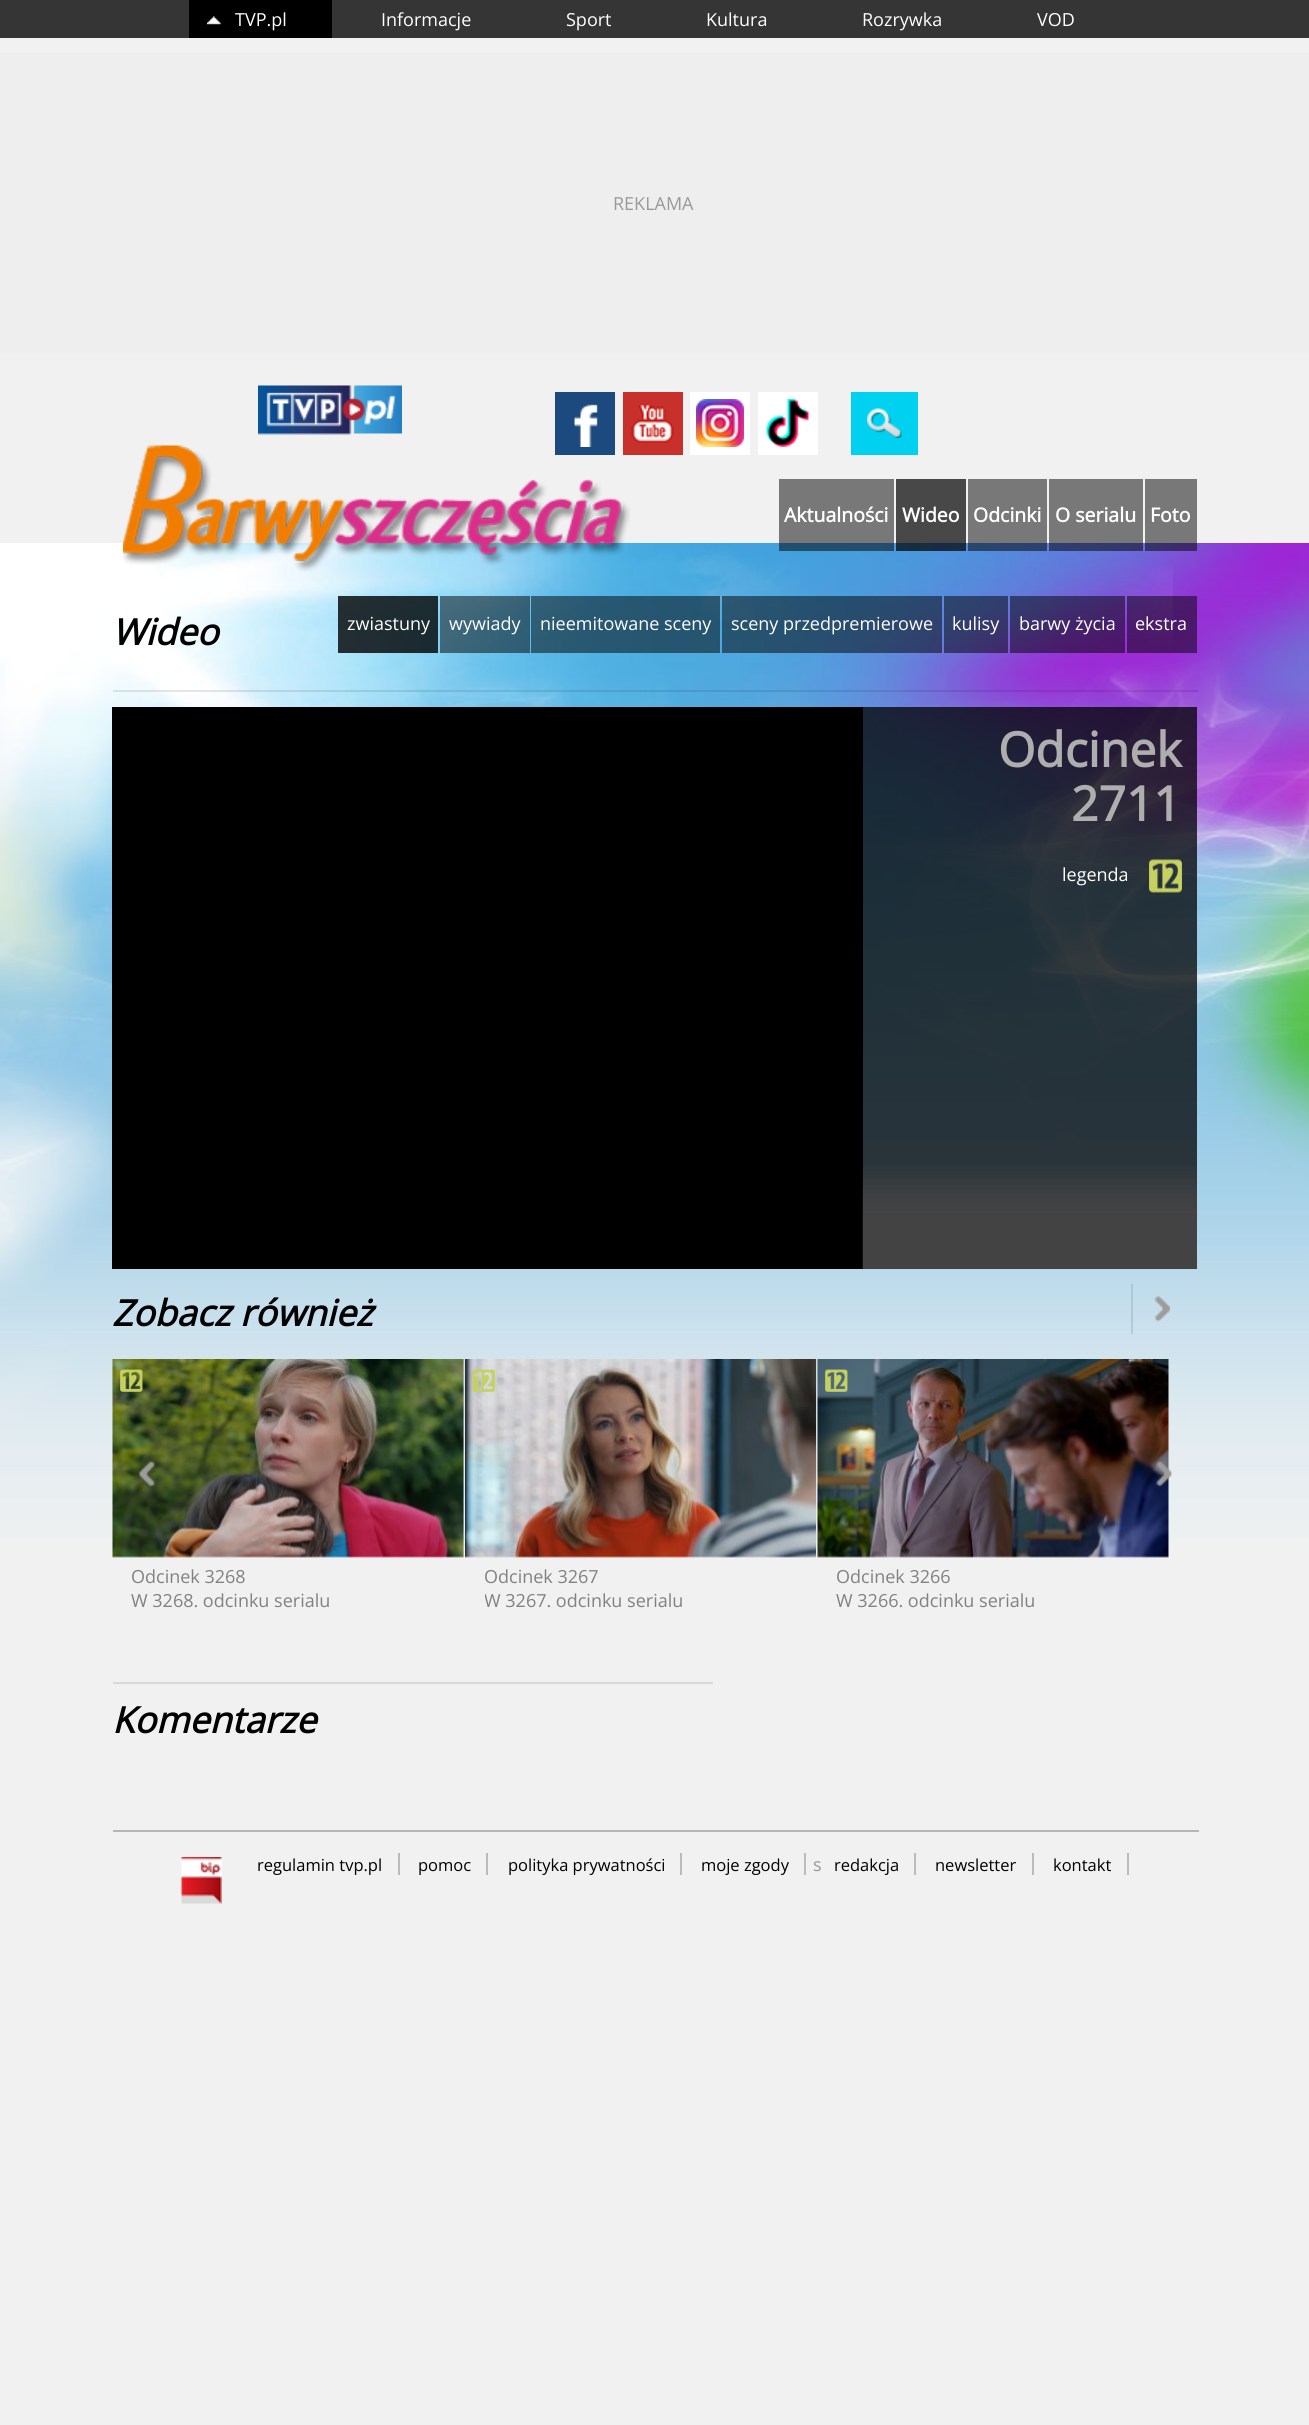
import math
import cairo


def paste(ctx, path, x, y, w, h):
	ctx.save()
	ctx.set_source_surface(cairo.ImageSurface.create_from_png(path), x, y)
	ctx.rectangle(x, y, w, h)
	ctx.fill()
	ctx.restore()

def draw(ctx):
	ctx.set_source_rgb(0.945, 0.945, 0.945)
	ctx.paint()
	paste(ctx, 'media/1.png', 0, 543, 1309, 996)
	ctx.set_source_rgb(0.208, 0.208, 0.208)
	ctx.rectangle(0, 0, 1309, 38)
	ctx.fill()
	ctx.set_source_rgb(0, 0, 0)
	ctx.rectangle(189, 0, 143, 38)
	ctx.fill()
	paste(ctx, 'media/2.png', 207, 16, 14, 9)
	ctx.select_font_face('Open Sans')
	ctx.set_font_size(18)
	ctx.set_source_rgb(1, 1, 1)
	for x, y, s in [
		(235, 26, 'TVP.pl'),
		(381, 26, 'Informacje'),
		(566, 26, 'Sport'),
		(706, 26, 'Kultura'),
		(862, 26, 'Rozrywka'),
		(1037, 26, 'VOD'),
	]:
		ctx.move_to(x, y)
		ctx.show_text(s)
	ctx.set_source_rgb(0.937, 0.933, 0.937)
	ctx.rectangle(0, 53, 1309, 300)
	ctx.fill()
	ctx.set_source_rgb(0.6, 0.6, 0.6)
	ctx.move_to(613, 210)
	ctx.show_text('REKLAMA')
	paste(ctx, 'media/3.png', 258, 385, 144, 50)
	paste(ctx, 'media/4.png', 123, 445, 507, 127)
	ctx.set_source_rgb(0.114, 0.29, 0.494)
	ctx.rectangle(555, 392, 60, 63)
	ctx.fill()
	paste(ctx, 'media/5.png', 574, 404, 24, 43)
	ctx.set_source_rgb(0.784, 0.192, 0.169)
	ctx.rectangle(623, 392, 60, 63)
	ctx.fill()
	paste(ctx, 'media/6.png', 631, 403, 43, 40)
	ctx.set_source_rgb(1, 1, 1)
	ctx.rectangle(690, 392, 60, 63)
	ctx.fill()
	paste(ctx, 'media/7.png', 696, 399, 48, 48)
	ctx.rectangle(758, 392, 60, 63)
	ctx.fill()
	paste(ctx, 'media/8.png', 766, 399, 43, 48)
	ctx.set_source_rgb(0, 0.82, 0.941)
	ctx.rectangle(851, 392, 67, 63)
	ctx.fill()
	paste(ctx, 'media/9.png', 867, 408, 35, 30)
	ctx.set_source_rgba(0, 0, 0, 0.5)
	ctx.rectangle(779, 479, 115, 72)
	ctx.fill()
	ctx.select_font_face('Open Sans', cairo.FONT_SLANT_NORMAL, cairo.FONT_WEIGHT_BOLD)
	ctx.set_font_size(19.5)
	ctx.set_source_rgb(1, 1, 1)
	ctx.move_to(784, 522)
	ctx.show_text('Aktualności')
	ctx.set_source_rgba(0, 0, 0, 0.7)
	ctx.rectangle(896, 479, 70, 72)
	ctx.fill()
	ctx.set_source_rgb(1, 1, 1)
	ctx.move_to(902, 522)
	ctx.show_text('Wideo')
	ctx.set_source_rgba(0, 0, 0, 0.5)
	ctx.rectangle(968, 479, 79, 72)
	ctx.fill()
	ctx.set_source_rgb(1, 1, 1)
	ctx.move_to(973, 522)
	ctx.show_text('Odcinki')
	ctx.set_source_rgba(0, 0, 0, 0.5)
	ctx.rectangle(1049, 479, 94, 72)
	ctx.fill()
	ctx.set_source_rgb(1, 1, 1)
	ctx.move_to(1055, 522)
	ctx.show_text('O serialu')
	ctx.set_source_rgba(0, 0, 0, 0.5)
	ctx.rectangle(1145, 479, 52, 72)
	ctx.fill()
	ctx.set_source_rgb(1, 1, 1)
	ctx.move_to(1150, 522)
	ctx.show_text('Foto')
	ctx.set_source_rgba(0, 0, 0, 0.1)
	ctx.rectangle(113, 690, 1086, 2)
	ctx.fill()
	ctx.select_font_face('Open Sans', cairo.FONT_SLANT_ITALIC, cairo.FONT_WEIGHT_BOLD)
	ctx.set_font_size(36)
	ctx.set_source_rgb(0, 0, 0)
	ctx.move_to(112, 645)
	ctx.show_text('Wideo')
	ctx.set_source_rgba(0, 0, 0, 0.8)
	ctx.rectangle(338, 596, 100, 57)
	ctx.fill()
	ctx.select_font_face('Open Sans')
	ctx.set_font_size(18)
	ctx.set_source_rgb(1, 1, 1)
	ctx.move_to(347, 630)
	ctx.show_text('zwiastuny')
	ctx.set_source_rgba(0, 0, 0, 0.5)
	ctx.rectangle(440, 596, 90, 57)
	ctx.fill()
	ctx.set_source_rgb(1, 1, 1)
	ctx.move_to(449, 630)
	ctx.show_text('wywiady')
	ctx.set_source_rgba(0, 0, 0, 0.5)
	ctx.rectangle(531, 596, 189, 57)
	ctx.fill()
	ctx.set_source_rgb(1, 1, 1)
	ctx.move_to(540, 630)
	ctx.show_text('nieemitowane sceny')
	ctx.set_source_rgba(0, 0, 0, 0.5)
	ctx.rectangle(722, 596, 220, 57)
	ctx.fill()
	ctx.set_source_rgb(1, 1, 1)
	ctx.move_to(731, 630)
	ctx.show_text('sceny przedpremierowe')
	ctx.set_source_rgba(0, 0, 0, 0.5)
	ctx.rectangle(944, 596, 64, 57)
	ctx.fill()
	ctx.set_source_rgb(1, 1, 1)
	ctx.move_to(952, 630)
	ctx.show_text('kulisy')
	ctx.set_source_rgba(0, 0, 0, 0.5)
	ctx.rectangle(1010, 596, 115, 57)
	ctx.fill()
	ctx.set_source_rgb(1, 1, 1)
	ctx.move_to(1019, 630)
	ctx.show_text('barwy życia')
	ctx.set_source_rgba(0, 0, 0, 0.5)
	ctx.rectangle(1127, 596, 70, 57)
	ctx.fill()
	ctx.set_source_rgb(1, 1, 1)
	ctx.move_to(1135, 630)
	ctx.show_text('ekstra')
	ctx.set_source_rgb(0, 0, 0)
	ctx.rectangle(112, 707, 751, 562)
	ctx.fill()
	ctx.set_source_rgba(0, 0, 0, 0.75)
	ctx.rectangle(863, 707, 334, 504)
	ctx.fill()
	ctx.select_font_face('Open Sans', cairo.FONT_SLANT_NORMAL, cairo.FONT_WEIGHT_BOLD)
	ctx.set_font_size(48)
	ctx.set_source_rgb(0.682, 0.682, 0.682)
	ctx.move_to(998, 767)
	ctx.show_text('Odcinek')
	ctx.move_to(1071, 821)
	ctx.show_text('2711')
	ctx.select_font_face('Open Sans')
	ctx.set_font_size(18)
	ctx.set_source_rgb(1, 1, 1)
	ctx.move_to(1062, 881)
	ctx.show_text('legenda')
	paste(ctx, 'media/10.png', 1149, 859, 33, 34)
	paste(ctx, 'media/11.png', 862, 1166, 335, 103)
	ctx.select_font_face('Open Sans', cairo.FONT_SLANT_ITALIC, cairo.FONT_WEIGHT_BOLD)
	ctx.set_font_size(36)
	ctx.set_source_rgb(0, 0, 0)
	ctx.move_to(112, 1326)
	ctx.show_text('Zobacz również')
	paste(ctx, 'media/12.png', 1155, 1296, 15, 26)
	ctx.set_source_rgba(0, 0, 0, 0.1)
	ctx.rectangle(1131, 1284, 2, 50)
	ctx.fill()
	paste(ctx, 'media/15.png', 112, 1359, 352, 199)
	paste(ctx, 'media/13.png', 139, 1461, 16, 26)
	paste(ctx, 'media/19.png', 817, 1359, 352, 199)
	paste(ctx, 'media/14.png', 1156, 1461, 16, 26)
	paste(ctx, 'media/16.png', 120, 1369, 23, 23)
	ctx.select_font_face('Open Sans')
	ctx.set_font_size(18)
	ctx.set_source_rgb(0.506, 0.506, 0.506)
	ctx.move_to(131, 1583)
	ctx.show_text('Odcinek 3268')
	ctx.move_to(131, 1607)
	ctx.show_text('W 3268. odcinku serialu')
	paste(ctx, 'media/17.png', 465, 1359, 352, 199)
	paste(ctx, 'media/18.png', 472, 1369, 23, 23)
	ctx.save()
	ctx.rectangle(485, 1565, 207, 51)
	ctx.clip()
	ctx.move_to(484, 1583)
	ctx.show_text('Odcinek 3267')
	ctx.move_to(484, 1607)
	ctx.show_text('W 3267. odcinku serialu')
	ctx.restore()
	paste(ctx, 'media/20.png', 825, 1369, 23, 23)
	ctx.move_to(836, 1583)
	ctx.show_text('Odcinek 3266')
	ctx.move_to(836, 1607)
	ctx.show_text('W 3266. odcinku serialu')
	ctx.set_source_rgb(0.851, 0.851, 0.851)
	ctx.rectangle(113, 1682, 600, 2)
	ctx.fill()
	ctx.select_font_face('Open Sans', cairo.FONT_SLANT_ITALIC, cairo.FONT_WEIGHT_BOLD)
	ctx.set_font_size(36)
	ctx.set_source_rgb(0, 0, 0)
	ctx.move_to(112, 1733)
	ctx.show_text('Komentarze')
	ctx.set_source_rgb(0.714, 0.714, 0.714)
	ctx.rectangle(113, 1830, 1086, 2)
	ctx.fill()
	paste(ctx, 'media/21.png', 181, 1857, 41, 47)
	ctx.select_font_face('Open Sans')
	ctx.set_font_size(16.5)
	ctx.set_source_rgb(0, 0, 0)
	ctx.move_to(257, 1871)
	ctx.show_text('regulamin tvp.pl')
	ctx.set_source_rgb(0.733, 0.733, 0.733)
	ctx.rectangle(398, 1853, 2, 22)
	ctx.fill()
	ctx.set_source_rgb(0, 0, 0)
	ctx.move_to(418, 1871)
	ctx.show_text('pomoc')
	ctx.set_source_rgb(0.733, 0.733, 0.733)
	ctx.rectangle(486, 1853, 2, 22)
	ctx.fill()
	ctx.set_source_rgb(0, 0, 0)
	ctx.move_to(508, 1871)
	ctx.show_text('polityka prywatności')
	ctx.set_source_rgb(0.733, 0.733, 0.733)
	ctx.rectangle(680, 1853, 2, 22)
	ctx.fill()
	ctx.set_source_rgb(0, 0, 0)
	ctx.move_to(701, 1871)
	ctx.show_text('moje zgody')
	ctx.set_source_rgb(0.733, 0.733, 0.733)
	ctx.rectangle(804, 1853, 2, 22)
	ctx.fill()
	ctx.set_font_size(18)
	ctx.set_source_rgb(0.6, 0.6, 0.6)
	ctx.move_to(813, 1871)
	ctx.show_text('s')
	ctx.set_font_size(16.5)
	ctx.set_source_rgb(0, 0, 0)
	ctx.move_to(834, 1871)
	ctx.show_text('redakcja')
	ctx.set_source_rgb(0.733, 0.733, 0.733)
	ctx.rectangle(914, 1853, 2, 22)
	ctx.fill()
	ctx.set_source_rgb(0, 0, 0)
	ctx.move_to(935, 1871)
	ctx.show_text('newsletter')
	ctx.set_source_rgb(0.733, 0.733, 0.733)
	ctx.rectangle(1032, 1853, 2, 22)
	ctx.fill()
	ctx.set_source_rgb(0, 0, 0)
	ctx.move_to(1053, 1871)
	ctx.show_text('kontakt')
	ctx.set_source_rgb(0.733, 0.733, 0.733)
	ctx.rectangle(1127, 1853, 2, 22)
	ctx.fill()


surface = cairo.ImageSurface(cairo.FORMAT_RGB24, 1309, 2425)
ctx = cairo.Context(surface)
options = cairo.FontOptions()
options.set_hint_metrics(cairo.HINT_METRICS_OFF)
options.set_hint_style(cairo.HINT_STYLE_NONE)
ctx.set_font_options(options)
ctx.set_miter_limit(4)
draw(ctx)
surface.write_to_png('image.png')
